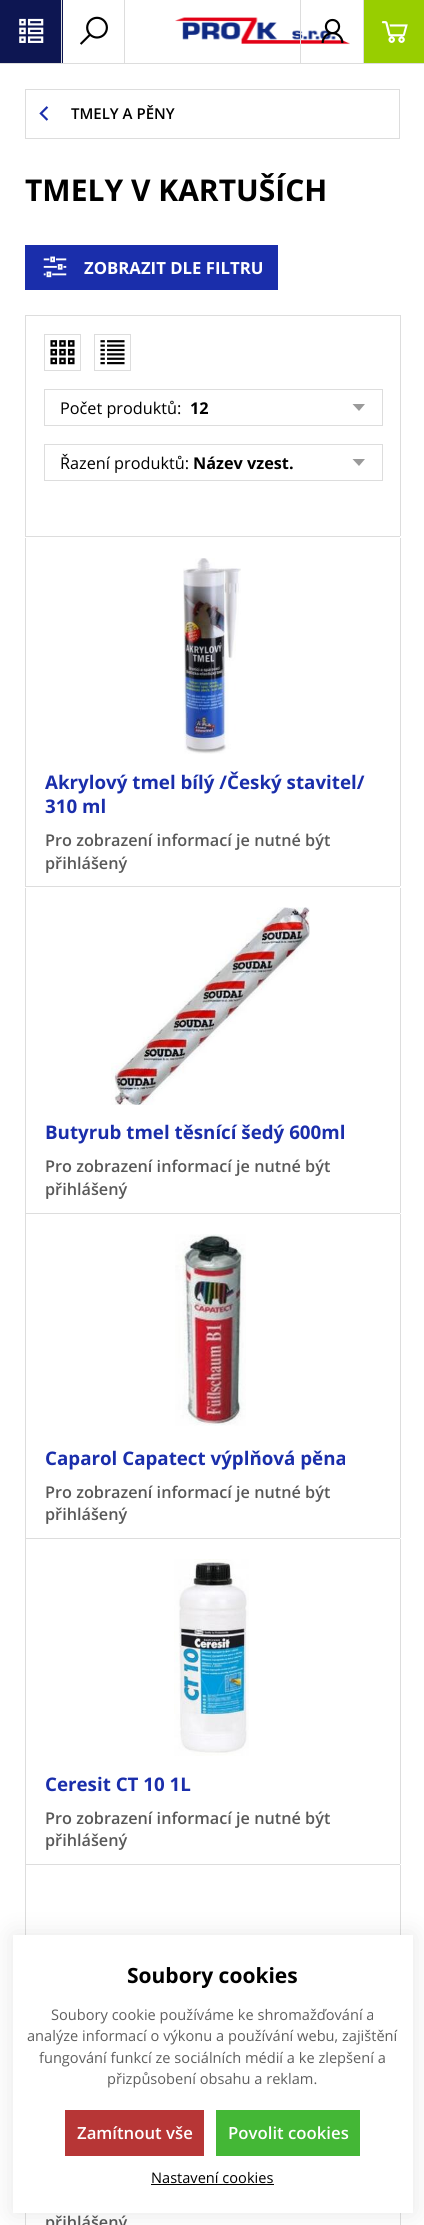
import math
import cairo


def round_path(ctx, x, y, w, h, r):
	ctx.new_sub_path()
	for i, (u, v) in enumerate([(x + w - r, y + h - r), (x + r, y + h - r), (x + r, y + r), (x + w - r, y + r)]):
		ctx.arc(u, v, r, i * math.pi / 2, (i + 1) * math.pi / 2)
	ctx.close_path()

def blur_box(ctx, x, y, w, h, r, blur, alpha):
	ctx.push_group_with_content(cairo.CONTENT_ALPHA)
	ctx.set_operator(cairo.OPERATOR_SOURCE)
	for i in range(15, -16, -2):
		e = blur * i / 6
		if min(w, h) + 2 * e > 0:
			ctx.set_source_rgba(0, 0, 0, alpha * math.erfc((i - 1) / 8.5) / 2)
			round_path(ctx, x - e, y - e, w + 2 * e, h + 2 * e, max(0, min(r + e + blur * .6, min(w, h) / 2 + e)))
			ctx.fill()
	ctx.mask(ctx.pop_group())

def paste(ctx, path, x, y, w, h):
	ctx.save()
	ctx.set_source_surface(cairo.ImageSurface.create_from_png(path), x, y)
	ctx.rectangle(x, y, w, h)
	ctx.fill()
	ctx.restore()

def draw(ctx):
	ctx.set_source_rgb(1, 1, 1)
	ctx.paint()
	ctx.set_source_rgb(0.867, 0.867, 0.867)
	ctx.rectangle(0, 63, 424, 1)
	ctx.fill()
	ctx.set_source_rgb(0.051, 0.086, 0.322)
	ctx.rectangle(0, 0, 63, 63)
	ctx.fill()
	ctx.set_source_rgb(0.867, 0.867, 0.867)
	ctx.rectangle(61, 0, 1, 63)
	ctx.fill()
	paste(ctx, 'media/1.png', 19, 18, 25, 25)
	ctx.rectangle(124, 0, 1, 63)
	ctx.fill()
	paste(ctx, 'media/2.png', 80, 16, 28, 29)
	paste(ctx, 'media/3.png', 175, 17, 175, 28)
	ctx.rectangle(300, 0, 1, 63)
	ctx.fill()
	paste(ctx, 'media/4.png', 321, 18, 23, 25)
	ctx.set_source_rgb(0.596, 0.808, 0)
	ctx.rectangle(364, 0, 60, 63)
	ctx.fill()
	ctx.set_source_rgb(0.867, 0.867, 0.867)
	ctx.rectangle(363, 0, 1, 63)
	ctx.fill()
	paste(ctx, 'media/5.png', 381, 21, 27, 22)
	ctx.rectangle(25.5, 89.5, 374, 49)
	ctx.set_line_width(1)
	ctx.stroke()
	paste(ctx, 'media/6.png', 39, 106, 10, 15)
	ctx.select_font_face('Open Sans SemiBold')
	ctx.set_font_size(15)
	ctx.set_source_rgb(0, 0, 0)
	ctx.move_to(71, 119)
	ctx.show_text('TMELY A PĚNY')
	ctx.select_font_face('Open Sans', cairo.FONT_SLANT_NORMAL, cairo.FONT_WEIGHT_BOLD)
	ctx.set_font_size(30)
	ctx.move_to(25, 201)
	ctx.show_text('TMELY V KARTUŠÍCH')
	ctx.set_source_rgb(0.102, 0.18, 0.671)
	ctx.rectangle(25, 245, 253, 45)
	ctx.fill()
	paste(ctx, 'media/7.png', 43, 256, 24, 22)
	ctx.set_font_size(16.75)
	ctx.set_source_rgb(1, 1, 1)
	ctx.move_to(84, 274)
	ctx.show_text('ZOBRAZIT DLE FILTRU')
	ctx.set_source_rgb(0.867, 0.867, 0.867)
	ctx.rectangle(25, 315, 376, 1)
	ctx.rectangle(400, 315, 1, 221)
	ctx.rectangle(25, 315, 1, 221)
	ctx.fill()
	ctx.rectangle(44.5, 334.5, 36, 36)
	ctx.stroke()
	paste(ctx, 'media/8.png', 50, 340, 25, 25)
	ctx.rectangle(94.5, 334.5, 36, 36)
	ctx.stroke()
	paste(ctx, 'media/9.png', 100, 340, 25, 25)
	ctx.set_source_rgb(0.604, 0.604, 0.604)
	ctx.new_path()
	ctx.move_to(359, 411)
	ctx.line_to(352.5, 404)
	ctx.line_to(365, 404)
	ctx.close_path()
	ctx.fill()
	ctx.rectangle(44.5, 389.5, 338, 36)
	ctx.set_source_rgb(0.867, 0.867, 0.867)
	ctx.stroke()
	ctx.select_font_face('Open Sans')
	ctx.set_font_size(16.25)
	ctx.set_source_rgb(0, 0, 0)
	ctx.move_to(60, 414)
	ctx.show_text('Počet produktů:')
	ctx.select_font_face('Open Sans', cairo.FONT_SLANT_NORMAL, cairo.FONT_WEIGHT_BOLD)
	ctx.move_to(190, 414)
	ctx.show_text('12')
	ctx.set_source_rgb(0.604, 0.604, 0.604)
	ctx.new_path()
	ctx.move_to(359, 466)
	ctx.line_to(352.5, 459)
	ctx.line_to(365, 459)
	ctx.close_path()
	ctx.fill()
	ctx.rectangle(44.5, 444.5, 338, 36)
	ctx.set_source_rgb(0.867, 0.867, 0.867)
	ctx.stroke()
	ctx.select_font_face('Open Sans')
	ctx.set_source_rgb(0, 0, 0)
	ctx.move_to(60, 469)
	ctx.show_text('Řazení produktů:')
	ctx.select_font_face('Open Sans', cairo.FONT_SLANT_NORMAL, cairo.FONT_WEIGHT_BOLD)
	ctx.move_to(193, 469)
	ctx.show_text('Název vzest.')
	ctx.set_source_rgb(0.867, 0.867, 0.867)
	ctx.rectangle(25, 536, 375, 1)
	ctx.rectangle(25, 886, 375, 1)
	ctx.rectangle(400, 538, 1, 348)
	ctx.rectangle(25, 538, 1, 348)
	ctx.fill()
	paste(ctx, 'media/10.png', 183, 558, 58, 196)
	ctx.set_font_size(18.75)
	ctx.set_source_rgb(0.102, 0.18, 0.671)
	ctx.move_to(45, 789)
	ctx.show_text('Akrylový tmel bílý /Český stavitel/')
	ctx.move_to(45, 813)
	ctx.show_text('310 ml')
	ctx.select_font_face('Open Sans SemiBold')
	ctx.set_font_size(16.25)
	ctx.set_source_rgb(0.345, 0.345, 0.345)
	ctx.move_to(45, 846)
	ctx.show_text('Pro zobrazení informací je nutné být')
	ctx.move_to(45, 869)
	ctx.show_text('přihlášený')
	ctx.set_source_rgb(0.867, 0.867, 0.867)
	ctx.rectangle(25, 1213, 375, 1)
	ctx.rectangle(400, 888, 1, 325)
	ctx.rectangle(25, 888, 1, 325)
	ctx.fill()
	paste(ctx, 'media/11.png', 111, 907, 199, 198)
	ctx.select_font_face('Open Sans', cairo.FONT_SLANT_NORMAL, cairo.FONT_WEIGHT_BOLD)
	ctx.set_font_size(18.75)
	ctx.set_source_rgb(0.102, 0.18, 0.671)
	ctx.move_to(45, 1139)
	ctx.show_text('Butyrub tmel těsnící šedý 600ml')
	ctx.select_font_face('Open Sans SemiBold')
	ctx.set_font_size(16.25)
	ctx.set_source_rgb(0.345, 0.345, 0.345)
	ctx.move_to(45, 1172)
	ctx.show_text('Pro zobrazení informací je nutné být')
	ctx.move_to(45, 1195)
	ctx.show_text('přihlášený')
	ctx.set_source_rgb(0.867, 0.867, 0.867)
	ctx.rectangle(25, 1538, 375, 1)
	ctx.rectangle(400, 1214, 1, 324)
	ctx.rectangle(25, 1214, 1, 324)
	ctx.fill()
	paste(ctx, 'media/12.png', 175, 1234, 71, 192)
	ctx.select_font_face('Open Sans', cairo.FONT_SLANT_NORMAL, cairo.FONT_WEIGHT_BOLD)
	ctx.set_font_size(18.75)
	ctx.set_source_rgb(0.102, 0.18, 0.671)
	ctx.move_to(45, 1465)
	ctx.show_text('Caparol Capatect výplňová pěna')
	ctx.select_font_face('Open Sans SemiBold')
	ctx.set_font_size(16.25)
	ctx.set_source_rgb(0.345, 0.345, 0.345)
	ctx.move_to(45, 1498)
	ctx.show_text('Pro zobrazení informací je nutné být')
	ctx.move_to(45, 1520)
	ctx.show_text('přihlášený')
	ctx.set_source_rgb(0.867, 0.867, 0.867)
	ctx.rectangle(25, 1864, 375, 1)
	ctx.rectangle(400, 1539, 1, 325)
	ctx.rectangle(25, 1539, 1, 325)
	ctx.fill()
	paste(ctx, 'media/13.png', 174, 1559, 75, 197)
	ctx.select_font_face('Open Sans', cairo.FONT_SLANT_NORMAL, cairo.FONT_WEIGHT_BOLD)
	ctx.set_font_size(18.75)
	ctx.set_source_rgb(0.102, 0.18, 0.671)
	ctx.move_to(45, 1791)
	ctx.show_text('Ceresit CT 10 1L')
	ctx.select_font_face('Open Sans SemiBold')
	ctx.set_font_size(16.25)
	ctx.set_source_rgb(0.345, 0.345, 0.345)
	ctx.move_to(45, 1824)
	ctx.show_text('Pro zobrazení informací je nutné být')
	ctx.move_to(45, 1846)
	ctx.show_text('přihlášený')
	ctx.set_source_rgb(0.867, 0.867, 0.867)
	ctx.rectangle(400, 1865, 1, 360)
	ctx.fill()
	ctx.rectangle(25, 1865, 1, 360)
	ctx.fill()
	ctx.set_source_rgb(0.345, 0.345, 0.345)
	ctx.move_to(45, 2228)
	ctx.show_text('přihlášený')
	ctx.set_source_rgb(0, 0, 0)
	blur_box(ctx, 13, 1935, 400, 278, 0, 12.5, 0.1)
	ctx.set_source_rgb(1, 1, 1)
	ctx.rectangle(13, 1935, 400, 278)
	ctx.fill()
	ctx.select_font_face('Open Sans', cairo.FONT_SLANT_NORMAL, cairo.FONT_WEIGHT_BOLD)
	ctx.set_font_size(21)
	ctx.set_source_rgb(0, 0, 0)
	ctx.move_to(127, 1983)
	ctx.show_text('Soubory cookies')
	ctx.select_font_face('Open Sans')
	ctx.set_font_size(14.6)
	ctx.set_source_rgb(0.369, 0.369, 0.369)
	for x, y, s in [
		(51, 2020, 'Soubory cookie používáme ke shromažďování a'),
		(27, 2041, 'analýze informací o výkonu a používání webu, zajištění'),
		(39, 2063, 'fungování funkcí ze sociálních médií a ke zlepšení a'),
		(107, 2084, 'přizpůsobení obsahu a reklam.'),
	]:
		ctx.move_to(x, y)
		ctx.show_text(s)
	ctx.set_source_rgb(0.718, 0.212, 0.212)
	ctx.rectangle(65, 2110, 139, 46)
	ctx.fill()
	ctx.select_font_face('Open Sans SemiBold')
	ctx.set_font_size(16.75)
	ctx.set_source_rgb(1, 1, 1)
	ctx.move_to(77, 2139)
	ctx.show_text('Zamítnout vše')
	ctx.set_source_rgb(0.267, 0.718, 0.212)
	ctx.rectangle(216, 2110, 144, 46)
	ctx.fill()
	ctx.set_source_rgb(1, 1, 1)
	ctx.move_to(228, 2139)
	ctx.show_text('Povolit cookies')
	ctx.select_font_face('Open Sans')
	ctx.set_font_size(14.6)
	ctx.set_source_rgb(0, 0, 0)
	ctx.move_to(151, 2183)
	ctx.show_text('Nastavení cookies')
	ctx.rectangle(151, 2184, 123, 1)
	ctx.fill()


surface = cairo.ImageSurface(cairo.FORMAT_RGB24, 424, 2225)
ctx = cairo.Context(surface)
options = cairo.FontOptions()
options.set_hint_metrics(cairo.HINT_METRICS_OFF)
options.set_hint_style(cairo.HINT_STYLE_NONE)
ctx.set_font_options(options)
ctx.set_miter_limit(4)
draw(ctx)
surface.write_to_png('image.png')
